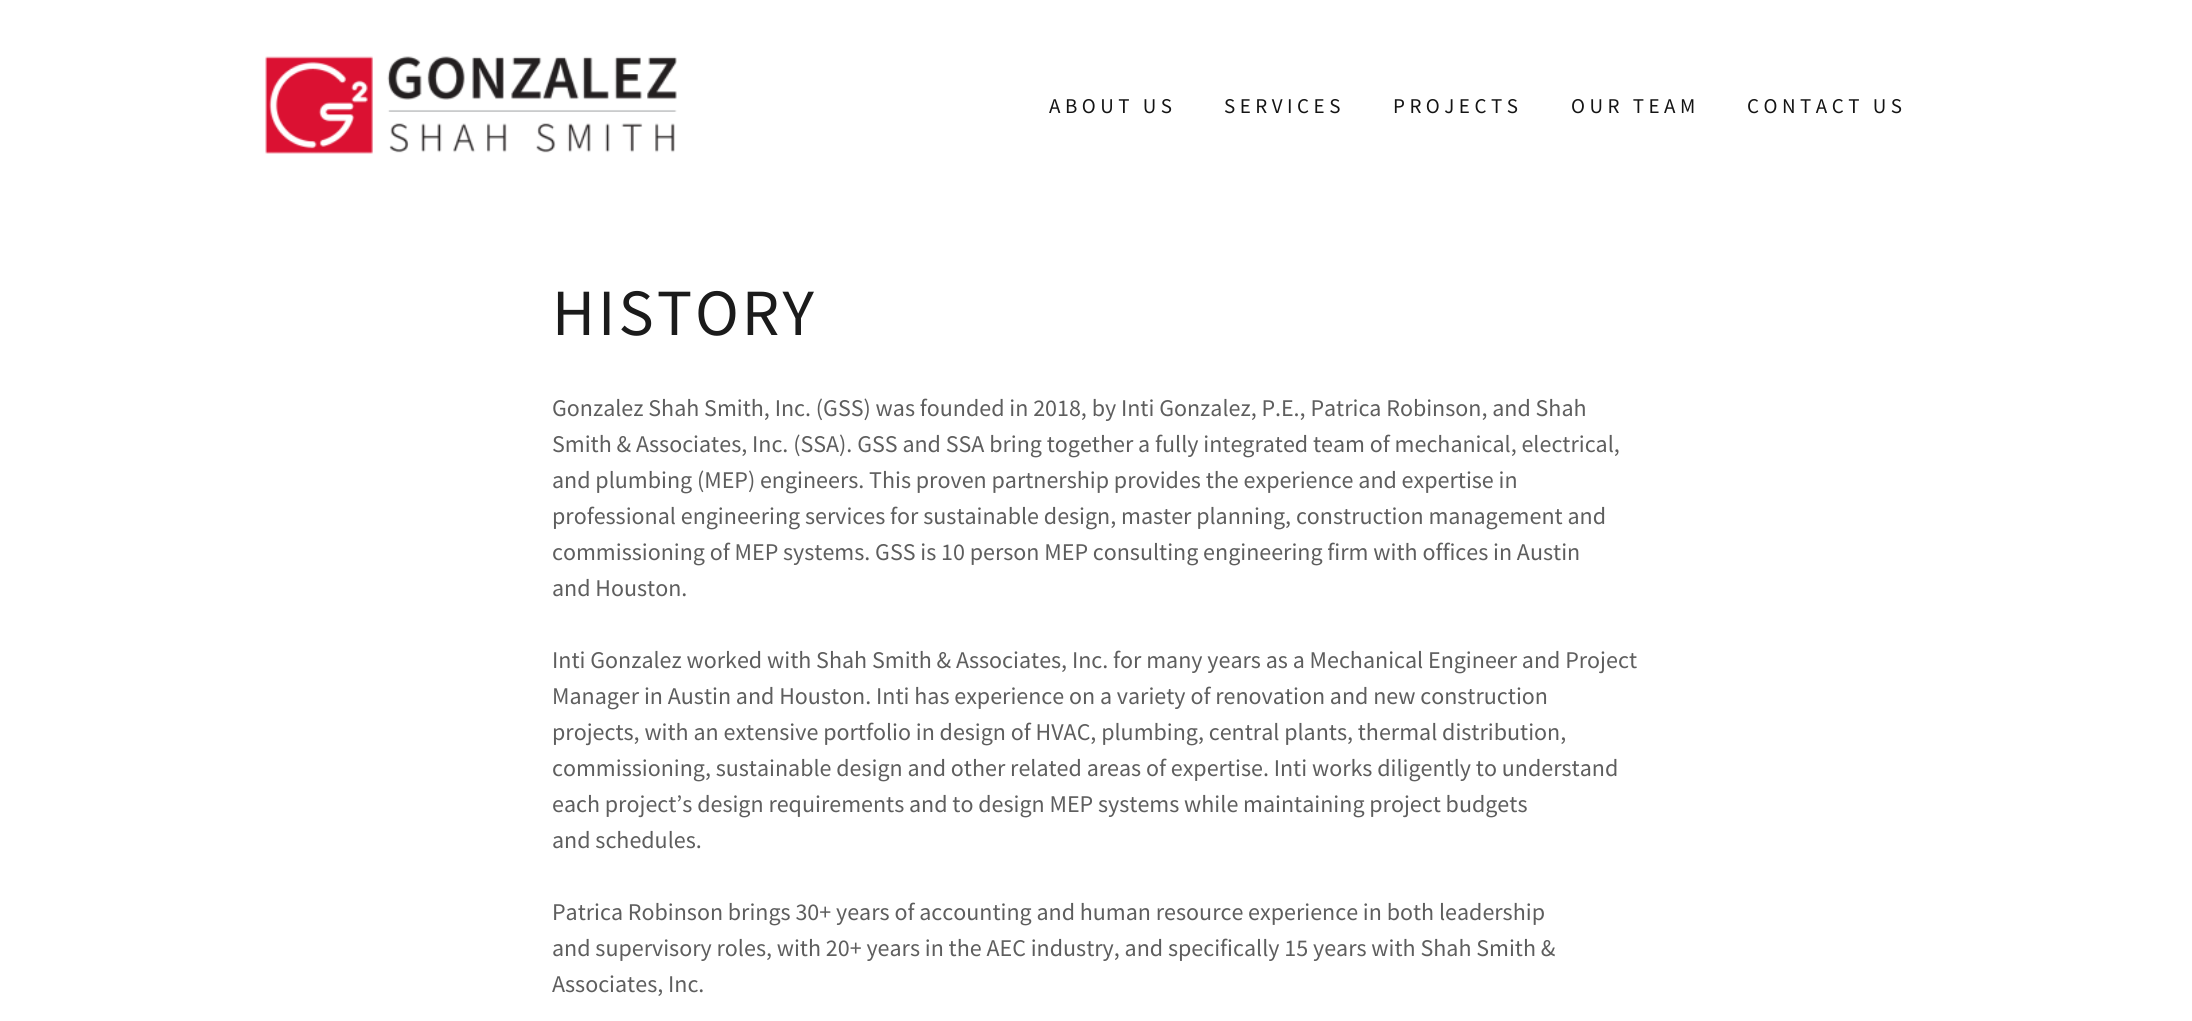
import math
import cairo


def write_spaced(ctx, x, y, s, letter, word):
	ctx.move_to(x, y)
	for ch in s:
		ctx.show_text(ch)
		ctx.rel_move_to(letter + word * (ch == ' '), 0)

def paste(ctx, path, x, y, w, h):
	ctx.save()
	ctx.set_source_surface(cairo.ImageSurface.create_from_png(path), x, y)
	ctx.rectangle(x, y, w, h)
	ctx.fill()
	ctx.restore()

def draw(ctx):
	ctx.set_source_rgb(1, 1, 1)
	ctx.paint()
	paste(ctx, 'media/1.png', 265, 56, 412, 98)
	ctx.select_font_face('Source Sans Pro')
	ctx.set_font_size(21)
	ctx.set_source_rgb(0.082, 0.082, 0.082)
	for x, y, s in [
		(1049, 113, 'ABOUT US'),
		(1224, 113, 'SERVICES'),
		(1393, 113, 'PROJECTS'),
		(1571, 113, 'OUR TEAM'),
		(1747, 113, 'CONTACT US'),
	]:
		write_spaced(ctx, x, y, s, 4.5, 0)
	ctx.set_font_size(66)
	ctx.set_source_rgb(0.106, 0.106, 0.106)
	write_spaced(ctx, 552, 335, 'HISTORY', 3, 0)
	ctx.set_font_size(24)
	ctx.set_source_rgb(0.369, 0.369, 0.369)
	for x, y, s in [
		(552, 416, 'Gonzalez Shah Smith, Inc. (GSS) was founded in 2018, by Inti Gonzalez, P.E., Patrica Robinson, and Shah'),
		(552, 452, 'Smith & Associates, Inc. (SSA). GSS and SSA bring together a fully integrated team of mechanical, electrical,'),
		(552, 488, 'and plumbing (MEP) engineers. This proven partnership provides the experience and expertise in'),
		(552, 524, 'professional engineering services for sustainable design, master planning, construction management and'),
		(552, 560, 'commissioning of MEP systems. GSS is 10 person MEP consulting engineering firm with offices in Austin'),
		(552, 596, 'and Houston.'),
		(552, 668, 'Inti Gonzalez worked with Shah Smith & Associates, Inc. for many years as a Mechanical Engineer and Project'),
		(552, 704, 'Manager in Austin and Houston. Inti has experience on a variety of renovation and new construction'),
		(552, 740, 'projects, with an extensive portfolio in design of HVAC, plumbing, central plants, thermal distribution,'),
		(552, 776, 'commissioning, sustainable design and other related areas of expertise. Inti works diligently to understand'),
		(552, 812, 'each project’s design requirements and to design MEP systems while maintaining project budgets'),
		(552, 848, 'and schedules.'),
		(552, 920, 'Patrica Robinson brings 30+ years of accounting and human resource experience in both leadership'),
		(552, 956, 'and supervisory roles, with 20+ years in the AEC industry, and specifically 15 years with Shah Smith &'),
		(552, 992, 'Associates, Inc.'),
	]:
		ctx.move_to(x, y)
		ctx.show_text(s)


surface = cairo.ImageSurface(cairo.FORMAT_RGB24, 2192, 1021)
ctx = cairo.Context(surface)
options = cairo.FontOptions()
options.set_hint_metrics(cairo.HINT_METRICS_OFF)
options.set_hint_style(cairo.HINT_STYLE_NONE)
ctx.set_font_options(options)
ctx.set_miter_limit(4)
draw(ctx)
surface.write_to_png('image.png')
